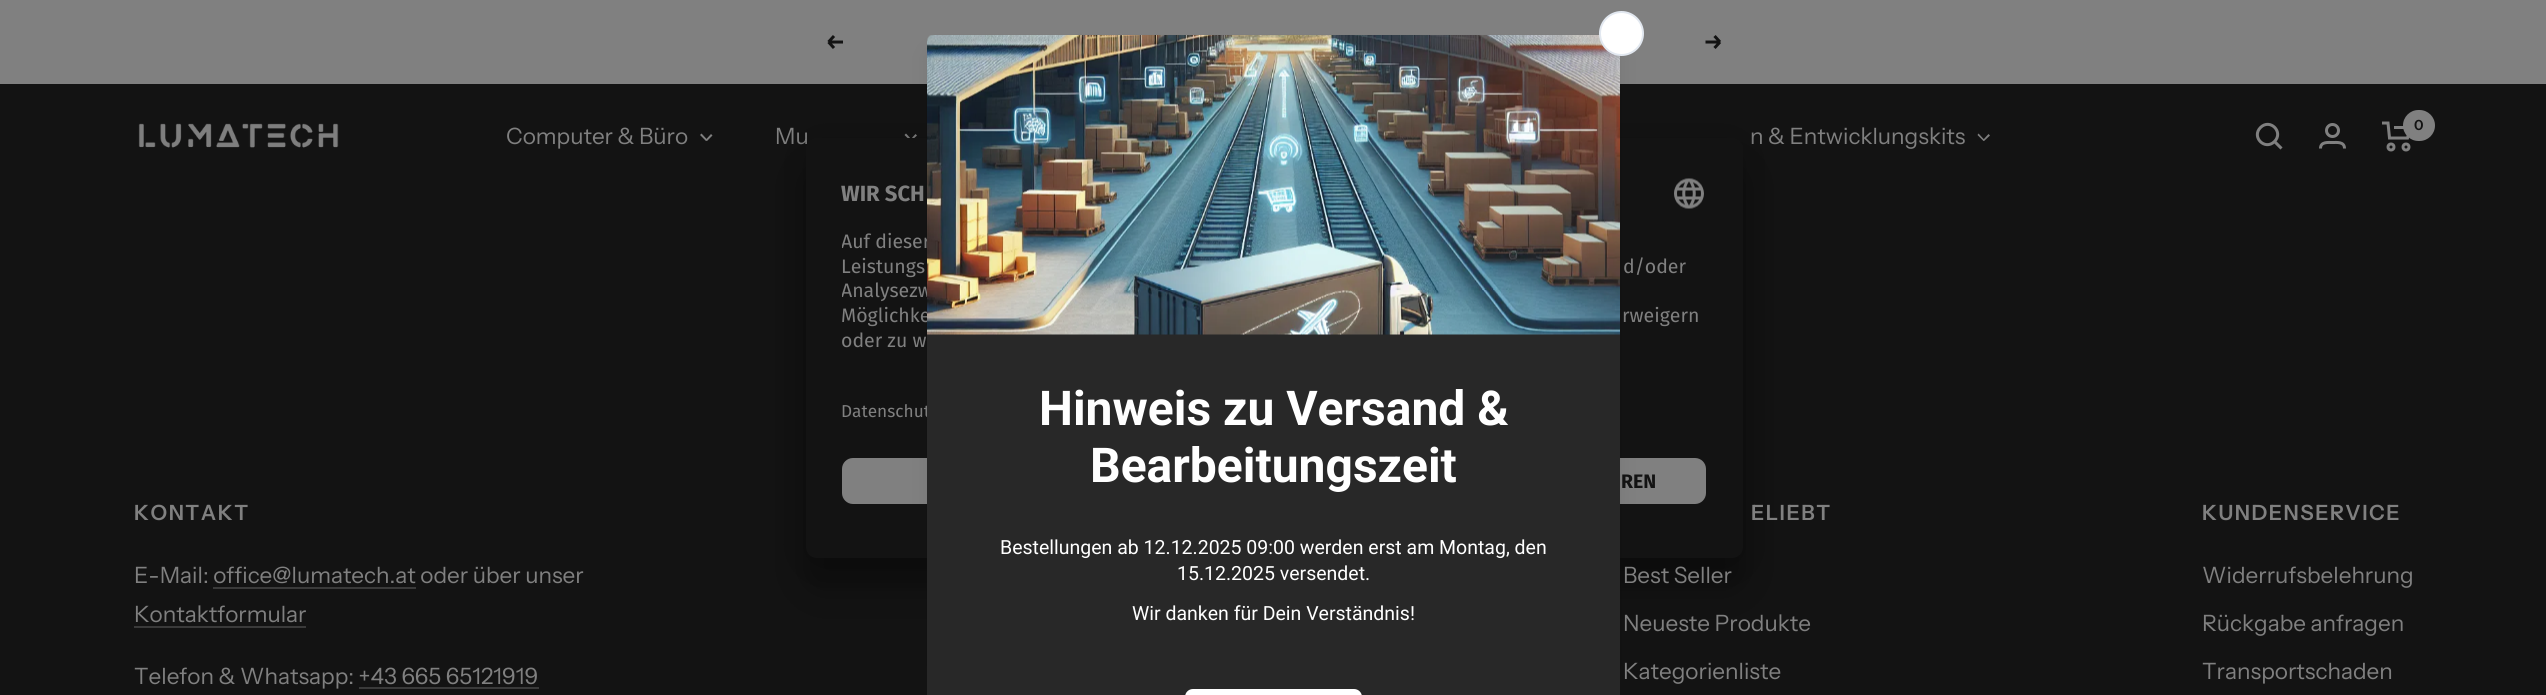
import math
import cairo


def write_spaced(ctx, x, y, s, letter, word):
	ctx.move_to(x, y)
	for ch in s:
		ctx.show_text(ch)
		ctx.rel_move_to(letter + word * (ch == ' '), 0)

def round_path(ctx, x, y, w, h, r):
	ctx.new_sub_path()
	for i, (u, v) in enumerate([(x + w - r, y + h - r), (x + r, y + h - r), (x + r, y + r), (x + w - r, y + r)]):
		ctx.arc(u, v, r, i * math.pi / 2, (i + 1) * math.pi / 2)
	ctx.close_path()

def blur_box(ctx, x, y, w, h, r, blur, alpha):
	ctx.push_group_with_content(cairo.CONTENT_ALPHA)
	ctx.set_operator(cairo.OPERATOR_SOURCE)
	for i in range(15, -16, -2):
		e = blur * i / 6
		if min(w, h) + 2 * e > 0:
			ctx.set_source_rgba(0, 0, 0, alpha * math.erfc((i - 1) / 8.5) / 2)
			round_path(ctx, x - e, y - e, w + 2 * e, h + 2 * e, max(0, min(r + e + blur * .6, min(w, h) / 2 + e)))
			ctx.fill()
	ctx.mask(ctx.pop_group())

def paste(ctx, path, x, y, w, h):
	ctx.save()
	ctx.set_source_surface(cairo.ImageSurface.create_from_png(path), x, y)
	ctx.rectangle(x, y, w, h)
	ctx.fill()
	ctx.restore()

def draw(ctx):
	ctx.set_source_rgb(0.078, 0.078, 0.078)
	ctx.paint()
	ctx.set_source_rgb(0.502, 0.502, 0.502)
	ctx.rectangle(0, 0, 2546, 84)
	ctx.fill()
	ctx.new_path()
	ctx.move_to(843, 42)
	ctx.line_to(828.5, 42)
	ctx.move_to(828.5, 42)
	ctx.line_to(834, 48)
	ctx.move_to(828.5, 42)
	ctx.line_to(834, 36)
	ctx.set_source_rgb(0.078, 0.078, 0.078)
	ctx.set_line_width(3)
	ctx.stroke()
	ctx.new_path()
	ctx.move_to(1705.5, 42)
	ctx.line_to(1720, 42)
	ctx.move_to(1720, 42)
	ctx.line_to(1714.5, 48)
	ctx.move_to(1720, 42)
	ctx.line_to(1714.5, 36)
	ctx.stroke()
	paste(ctx, 'media/1.png', 138, 123, 201, 25)
	ctx.select_font_face('Instrument Sans')
	ctx.set_font_size(22.5)
	ctx.set_source_rgb(0.502, 0.502, 0.502)
	ctx.move_to(506, 144)
	ctx.show_text('Computer & Büro')
	ctx.new_path()
	ctx.move_to(711, 134)
	ctx.line_to(712.5, 135.5)
	ctx.line_to(707, 141)
	ctx.line_to(705.5, 140)
	ctx.close_path()
	ctx.fill()
	ctx.new_path()
	ctx.move_to(701.5, 133.5)
	ctx.line_to(707.5, 140)
	ctx.line_to(706, 141)
	ctx.line_to(700, 135)
	ctx.close_path()
	ctx.fill()
	ctx.move_to(775, 144)
	ctx.show_text('Mu')
	ctx.new_path()
	ctx.move_to(915.5, 134)
	ctx.line_to(917, 135.5)
	ctx.line_to(911, 141)
	ctx.line_to(910, 140)
	ctx.close_path()
	ctx.fill()
	ctx.new_path()
	ctx.move_to(906, 133.5)
	ctx.line_to(912, 140)
	ctx.line_to(910.5, 141)
	ctx.line_to(904.5, 135)
	ctx.close_path()
	ctx.fill()
	ctx.move_to(1750, 144)
	ctx.show_text('n & Entwicklungskits')
	ctx.new_path()
	ctx.move_to(1988.5, 134)
	ctx.line_to(1990, 135.5)
	ctx.line_to(1984, 141)
	ctx.line_to(1983, 140)
	ctx.close_path()
	ctx.fill()
	ctx.new_path()
	ctx.move_to(1978.5, 133.5)
	ctx.line_to(1984.5, 140)
	ctx.line_to(1983.5, 141)
	ctx.line_to(1977.5, 135)
	ctx.close_path()
	ctx.fill()
	ctx.new_path()
	ctx.move_to(2274.5, 141.5)
	ctx.curve_to(2284, 132, 2270, 118, 2260.5, 127.5)
	ctx.curve_to(2251, 137, 2265, 151, 2274.5, 141.5)
	ctx.close_path()
	ctx.move_to(2274.5, 141.5)
	ctx.line_to(2281.5, 148.5)
	ctx.stroke()
	ctx.arc(2332.5, 130.5, 6, 0, 2 * math.pi)
	ctx.stroke()
	ctx.new_path()
	ctx.move_to(2320.5, 148.5)
	ctx.curve_to(2320.5, 141.5, 2328, 142.5, 2332.5, 142.5)
	ctx.curve_to(2337, 142.5, 2344.5, 141.5, 2344.5, 148.5)
	ctx.stroke()
	ctx.new_path()
	ctx.move_to(2382, 123)
	ctx.line_to(2388, 123)
	ctx.line_to(2389.5, 138)
	ctx.line_to(2407.5, 138)
	ctx.line_to(2410.5, 127.5)
	ctx.line_to(2394, 127.5)
	ctx.stroke()
	ctx.arc(2391, 147, 3, 0, 2 * math.pi)
	ctx.stroke()
	ctx.arc(2406, 147, 3, 0, 2 * math.pi)
	ctx.stroke()
	round_path(ctx, 2403, 110, 32, 31, 15.5)
	ctx.fill()
	ctx.select_font_face('Instrument Sans SemiBold')
	ctx.set_font_size(14)
	ctx.set_source_rgb(0.078, 0.078, 0.078)
	ctx.move_to(2414, 130)
	ctx.show_text('0')
	ctx.set_source_rgb(0, 0, 0)
	blur_box(ctx, 806, 168, 937, 420, 11, 21, 0.3)
	blur_box(ctx, 806, 146, 937, 420, 11, 19.5, 0.22)
	ctx.set_source_rgb(0.078, 0.078, 0.078)
	round_path(ctx, 806, 138, 937, 420, 11)
	ctx.fill()
	ctx.save()
	round_path(ctx, 806, 138, 937, 420, 11)
	ctx.clip()
	ctx.new_path()
	ctx.move_to(817, 138)
	ctx.line_to(1732, 138)
	ctx.curve_to(1738, 138, 1743, 143, 1743, 149)
	ctx.line_to(1743, 446)
	ctx.line_to(806, 446)
	ctx.line_to(806, 149)
	ctx.curve_to(806, 143, 811, 138, 817, 138)
	ctx.close_path()
	ctx.clip()
	ctx.rectangle(806, 140, 937, 306)
	ctx.fill()
	ctx.restore()
	ctx.select_font_face('Fira Sans', cairo.FONT_SLANT_NORMAL, cairo.FONT_WEIGHT_BOLD)
	ctx.set_font_size(22)
	ctx.set_source_rgb(0.502, 0.502, 0.502)
	ctx.move_to(841, 201)
	ctx.show_text('WIR SCH')
	paste(ctx, 'media/2.png', 1674, 178, 30, 31)
	ctx.save()
	ctx.rectangle(842, 224, 865, 135)
	ctx.clip()
	ctx.select_font_face('Fira Sans')
	ctx.set_font_size(19.5)
	ctx.move_to(841, 248)
	ctx.show_text('Auf dieser')
	ctx.restore()
	ctx.select_font_face('Fira Sans')
	ctx.set_font_size(19.5)
	ctx.move_to(841, 273)
	ctx.show_text('Leistungs')
	ctx.move_to(1623, 273)
	ctx.show_text('d/oder')
	ctx.save()
	ctx.rectangle(842, 224, 865, 135)
	ctx.clip()
	ctx.move_to(841, 297)
	ctx.show_text('Analysezw')
	ctx.restore()
	for x, y, s in [
		(841, 322, 'Möglichke'),
		(1622, 322, 'rweigern'),
		(841, 347, 'oder zu w'),
	]:
		ctx.move_to(x, y)
		ctx.show_text(s)
	ctx.set_font_size(17.25)
	ctx.move_to(841, 417)
	ctx.show_text('Datenschut')
	round_path(ctx, 842, 458, 276, 46, 11)
	ctx.fill()
	round_path(ctx, 1430, 458, 276, 46, 11)
	ctx.fill()
	ctx.select_font_face('Fira Sans', cairo.FONT_SLANT_NORMAL, cairo.FONT_WEIGHT_BOLD)
	ctx.set_font_size(19.5)
	ctx.set_source_rgb(0.078, 0.078, 0.078)
	ctx.move_to(1621, 488)
	ctx.show_text('REN')
	ctx.set_source_rgb(0, 0, 0)
	blur_box(ctx, 932, 54, 684, 618, 2, 11, 0.1)
	ctx.set_source_rgb(0.157, 0.157, 0.157)
	round_path(ctx, 927, 35, 693, 627, 8)
	ctx.fill()
	paste(ctx, 'media/3.png', 927, 35, 693, 300)
	ctx.set_source_rgb(1, 1, 1)
	ctx.arc(1621.5, 33.5, 21.5, 0, 2 * math.pi)
	ctx.fill_preserve()
	ctx.set_source_rgb(0.886, 0.91, 0.941)
	ctx.set_line_width(2)
	ctx.stroke()
	ctx.set_source_rgb(0.157, 0.157, 0.157)
	round_path(ctx, 927, 335, 693, 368, 8)
	ctx.fill()
	ctx.select_font_face('Roboto', cairo.FONT_SLANT_NORMAL, cairo.FONT_WEIGHT_BOLD)
	ctx.set_font_size(48)
	ctx.set_source_rgb(1, 1, 1)
	ctx.move_to(1039, 425)
	ctx.show_text('Hinweis zu Versand &')
	ctx.move_to(1090, 482)
	ctx.show_text('Bearbeitungszeit')
	ctx.select_font_face('Roboto')
	ctx.set_font_size(19.5)
	for x, y, s in [
		(1000, 554, 'Bestellungen ab 12.12.2025 09:00 werden erst am Montag, den'),
		(1177, 580, '15.12.2025 versendet.'),
		(1132, 620, 'Wir danken für Dein Verständnis!'),
	]:
		ctx.move_to(x, y)
		ctx.show_text(s)
	round_path(ctx, 1185, 689, 177, 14, 8)
	ctx.fill()
	ctx.select_font_face('Instrument Sans SemiBold')
	ctx.set_font_size(21)
	ctx.set_source_rgb(0.502, 0.502, 0.502)
	write_spaced(ctx, 134, 520, 'KONTAKT', 1.5, 0)
	ctx.select_font_face('Instrument Sans')
	ctx.set_font_size(22.5)
	ctx.move_to(134, 583)
	ctx.show_text('E-Mail: office@lumatech.at oder über unser')
	ctx.set_source_rgb(0.227, 0.227, 0.227)
	ctx.rectangle(213, 587, 203, 2)
	ctx.fill()
	ctx.set_source_rgb(0.502, 0.502, 0.502)
	ctx.move_to(134, 622)
	ctx.show_text('Kontaktformular')
	ctx.set_source_rgb(0.227, 0.227, 0.227)
	ctx.rectangle(134, 626, 172, 2)
	ctx.fill()
	ctx.set_source_rgb(0.502, 0.502, 0.502)
	ctx.move_to(134, 684)
	ctx.show_text('Telefon & Whatsapp: +43 665 65121919')
	ctx.set_source_rgb(0.227, 0.227, 0.227)
	ctx.rectangle(359, 687, 180, 2)
	ctx.fill()
	ctx.select_font_face('Instrument Sans SemiBold')
	ctx.set_font_size(21)
	ctx.set_source_rgb(0.502, 0.502, 0.502)
	write_spaced(ctx, 1751, 520, 'ELIEBT', 1.5, 0)
	ctx.select_font_face('Instrument Sans')
	ctx.set_font_size(22.5)
	for x, y, s in [
		(1623, 583, 'Best Seller'),
		(1623, 631, 'Neueste Produkte'),
		(1623, 679, 'Kategorienliste'),
	]:
		ctx.move_to(x, y)
		ctx.show_text(s)
	ctx.select_font_face('Instrument Sans SemiBold')
	ctx.set_font_size(21)
	write_spaced(ctx, 2202, 520, 'KUNDENSERVICE', 1.5, 0)
	ctx.select_font_face('Instrument Sans')
	ctx.set_font_size(22.5)
	for x, y, s in [
		(2202, 583, 'Widerrufsbelehrung'),
		(2202, 631, 'Rückgabe anfragen'),
		(2202, 679, 'Transportschaden'),
	]:
		ctx.move_to(x, y)
		ctx.show_text(s)


surface = cairo.ImageSurface(cairo.FORMAT_RGB24, 2546, 695)
ctx = cairo.Context(surface)
options = cairo.FontOptions()
options.set_hint_metrics(cairo.HINT_METRICS_OFF)
options.set_hint_style(cairo.HINT_STYLE_NONE)
ctx.set_font_options(options)
ctx.set_miter_limit(4)
draw(ctx)
surface.write_to_png('image.png')
